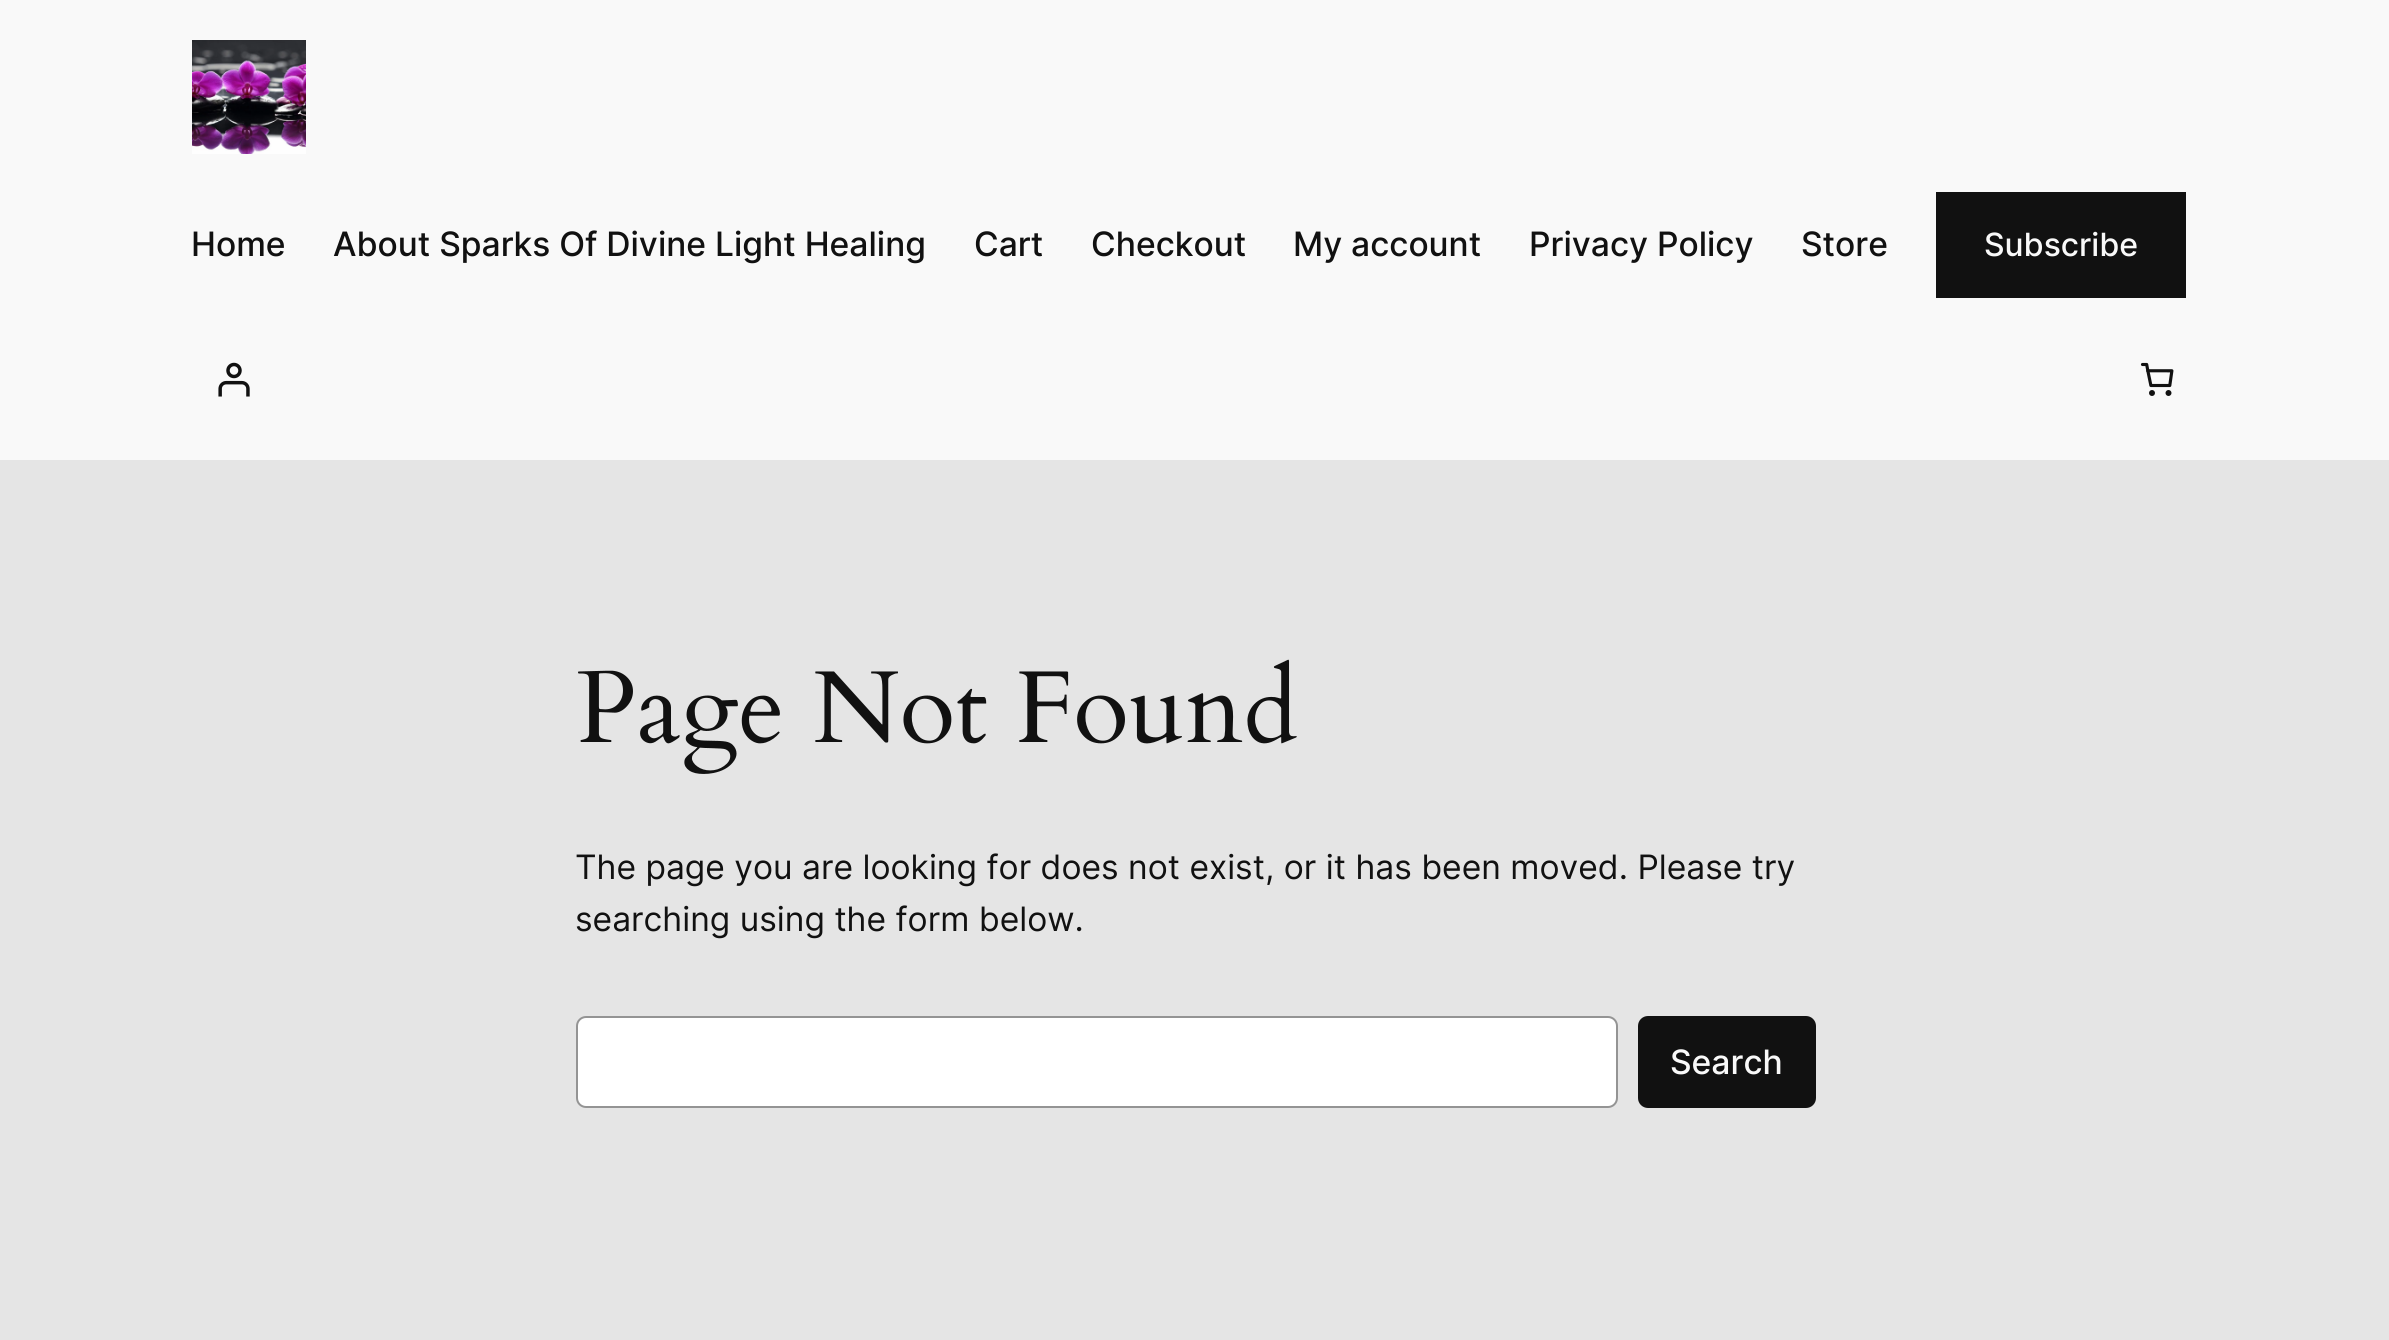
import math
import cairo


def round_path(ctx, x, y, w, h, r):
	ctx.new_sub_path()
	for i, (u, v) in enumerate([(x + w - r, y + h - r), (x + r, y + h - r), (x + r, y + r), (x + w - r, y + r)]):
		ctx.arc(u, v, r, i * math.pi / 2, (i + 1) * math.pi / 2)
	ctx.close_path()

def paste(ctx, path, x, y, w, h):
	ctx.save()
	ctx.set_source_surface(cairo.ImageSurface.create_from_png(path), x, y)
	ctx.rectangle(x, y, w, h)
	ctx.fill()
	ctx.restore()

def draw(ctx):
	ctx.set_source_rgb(0.898, 0.898, 0.898)
	ctx.paint()
	ctx.set_source_rgb(0.976, 0.976, 0.976)
	ctx.rectangle(0, 0, 2389, 460)
	ctx.fill()
	paste(ctx, 'media/1.png', 192, 40, 114, 114)
	ctx.select_font_face('Inter Medium')
	ctx.set_font_size(33.6)
	ctx.set_source_rgb(0.067, 0.067, 0.067)
	for x, y, s in [
		(191, 256, 'Home'),
		(333, 256, 'About Sparks Of Divine Light Healing'),
		(974, 256, 'Cart'),
		(1091, 256, 'Checkout'),
		(1293, 256, 'My account'),
		(1529, 256, 'Privacy Policy'),
		(1801, 256, 'Store'),
	]:
		ctx.move_to(x, y)
		ctx.show_text(s)
	ctx.rectangle(1936, 192, 250, 106)
	ctx.fill()
	ctx.set_font_size(32)
	ctx.set_source_rgb(0.976, 0.976, 0.976)
	ctx.move_to(1984, 256)
	ctx.show_text('Subscribe')
	paste(ctx, 'media/2.png', 218, 362, 32, 35)
	paste(ctx, 'media/3.png', 2140, 362, 34, 34)
	paste(ctx, 'media/4.png', 578, 659, 719, 115)
	ctx.select_font_face('Inter')
	ctx.set_font_size(33.6)
	ctx.set_source_rgb(0.067, 0.067, 0.067)
	ctx.move_to(575, 879)
	ctx.show_text('The page you are looking for does not exist, or it has been moved. Please try')
	ctx.move_to(575, 931)
	ctx.show_text('searching using the form below.')
	ctx.set_source_rgb(1, 1, 1)
	round_path(ctx, 577, 1017, 1040, 90, 9)
	ctx.fill_preserve()
	ctx.set_source_rgb(0.58, 0.58, 0.58)
	ctx.stroke()
	ctx.set_source_rgb(0.067, 0.067, 0.067)
	round_path(ctx, 1638, 1016, 178, 92, 10)
	ctx.fill()
	ctx.select_font_face('Inter Medium')
	ctx.set_source_rgb(0.976, 0.976, 0.976)
	ctx.move_to(1670, 1074)
	ctx.show_text('Search')


surface = cairo.ImageSurface(cairo.FORMAT_RGB24, 2389, 1340)
ctx = cairo.Context(surface)
options = cairo.FontOptions()
options.set_hint_metrics(cairo.HINT_METRICS_OFF)
options.set_hint_style(cairo.HINT_STYLE_NONE)
ctx.set_font_options(options)
ctx.set_miter_limit(4)
draw(ctx)
surface.write_to_png('image.png')
